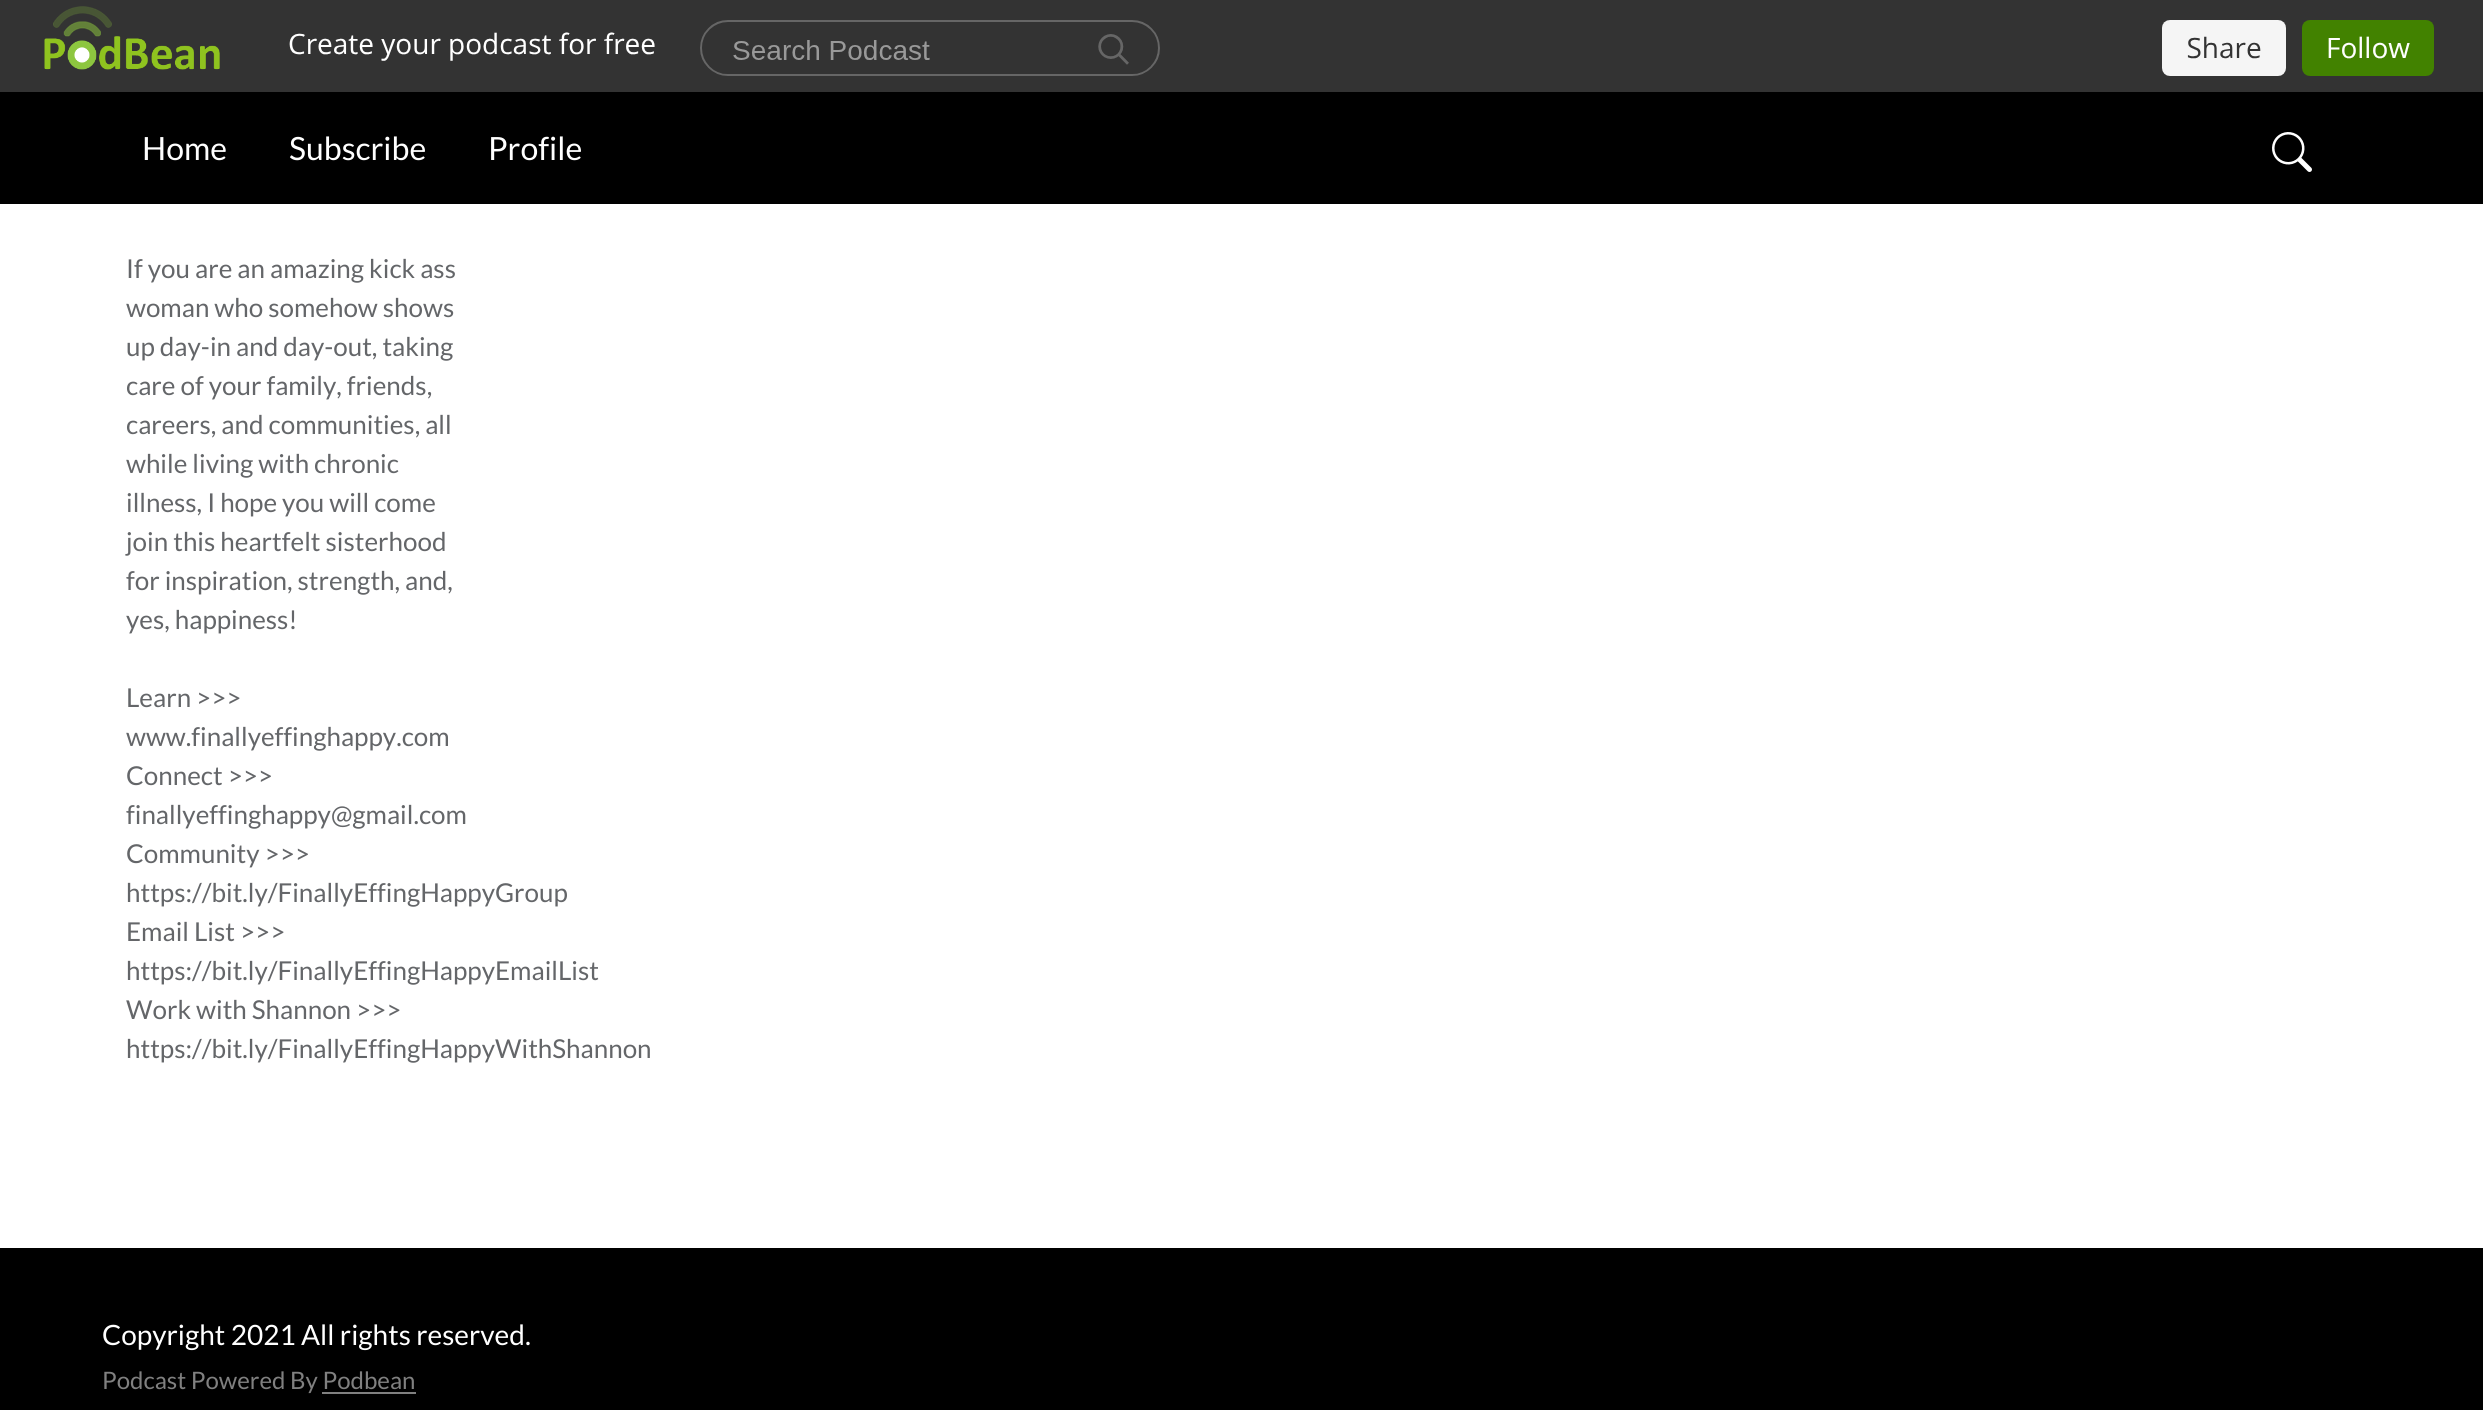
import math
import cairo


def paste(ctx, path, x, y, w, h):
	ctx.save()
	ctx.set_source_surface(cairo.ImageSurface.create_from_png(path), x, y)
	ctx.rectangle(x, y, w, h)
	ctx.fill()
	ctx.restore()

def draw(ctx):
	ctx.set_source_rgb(1, 1, 1)
	ctx.paint()
	ctx.set_source_rgb(0.2, 0.2, 0.2)
	ctx.rectangle(0, 0, 2483, 92)
	ctx.fill()
	paste(ctx, 'media/1.png', 44, 6, 2390, 70)
	ctx.set_source_rgb(0, 0, 0)
	ctx.rectangle(0, 92, 2483, 112)
	ctx.fill()
	ctx.select_font_face('Lato')
	ctx.set_font_size(32)
	ctx.set_source_rgb(1, 1, 1)
	for x, y, s in [
		(142, 160, 'Home'),
		(289, 160, 'Subscribe'),
		(488, 160, 'Profile'),
	]:
		ctx.move_to(x, y)
		ctx.show_text(s)
	paste(ctx, 'media/2.png', 2272, 132, 40, 40)
	ctx.set_font_size(26)
	ctx.set_source_rgb(0.392, 0.4, 0.412)
	for x, y, s in [
		(126, 278, 'If you are an amazing kick ass'),
		(126, 317, 'woman who somehow shows'),
		(126, 356, 'up day-in and day-out, taking'),
		(126, 395, 'care of your family, friends,'),
		(126, 434, 'careers, and communities, all'),
		(126, 473, 'while living with chronic'),
		(126, 512, 'illness, I hope you will come'),
		(126, 551, 'join this heartfelt sisterhood'),
		(126, 590, 'for inspiration, strength, and,'),
		(126, 629, 'yes, happiness!'),
		(126, 707, 'Learn >>>'),
		(126, 746, 'www.finallyeffinghappy.com'),
		(126, 785, 'Connect >>>'),
		(126, 824, 'finallyeffinghappy@gmail.com'),
		(126, 863, 'Community >>>'),
		(126, 902, 'https://bit.ly/FinallyEffingHappyGroup'),
		(126, 941, 'Email List >>>'),
		(126, 980, 'https://bit.ly/FinallyEffingHappyEmailList'),
		(126, 1019, 'Work with Shannon >>>'),
		(126, 1058, 'https://bit.ly/FinallyEffingHappyWithShannon'),
	]:
		ctx.move_to(x, y)
		ctx.show_text(s)
	ctx.set_source_rgb(0, 0, 0)
	ctx.rectangle(0, 1248, 2483, 162)
	ctx.fill()
	ctx.set_font_size(28)
	ctx.set_source_rgb(1, 1, 1)
	ctx.move_to(102, 1345)
	ctx.show_text('Copyright 2021 All rights reserved.')
	ctx.set_font_size(24)
	ctx.set_source_rgb(0.502, 0.502, 0.502)
	ctx.move_to(102, 1389)
	ctx.show_text('Podcast Powered By Podbean')
	ctx.rectangle(322, 1392, 94, 2)
	ctx.fill()


surface = cairo.ImageSurface(cairo.FORMAT_RGB24, 2483, 1410)
ctx = cairo.Context(surface)
options = cairo.FontOptions()
options.set_hint_metrics(cairo.HINT_METRICS_OFF)
options.set_hint_style(cairo.HINT_STYLE_NONE)
ctx.set_font_options(options)
ctx.set_miter_limit(4)
draw(ctx)
surface.write_to_png('image.png')
